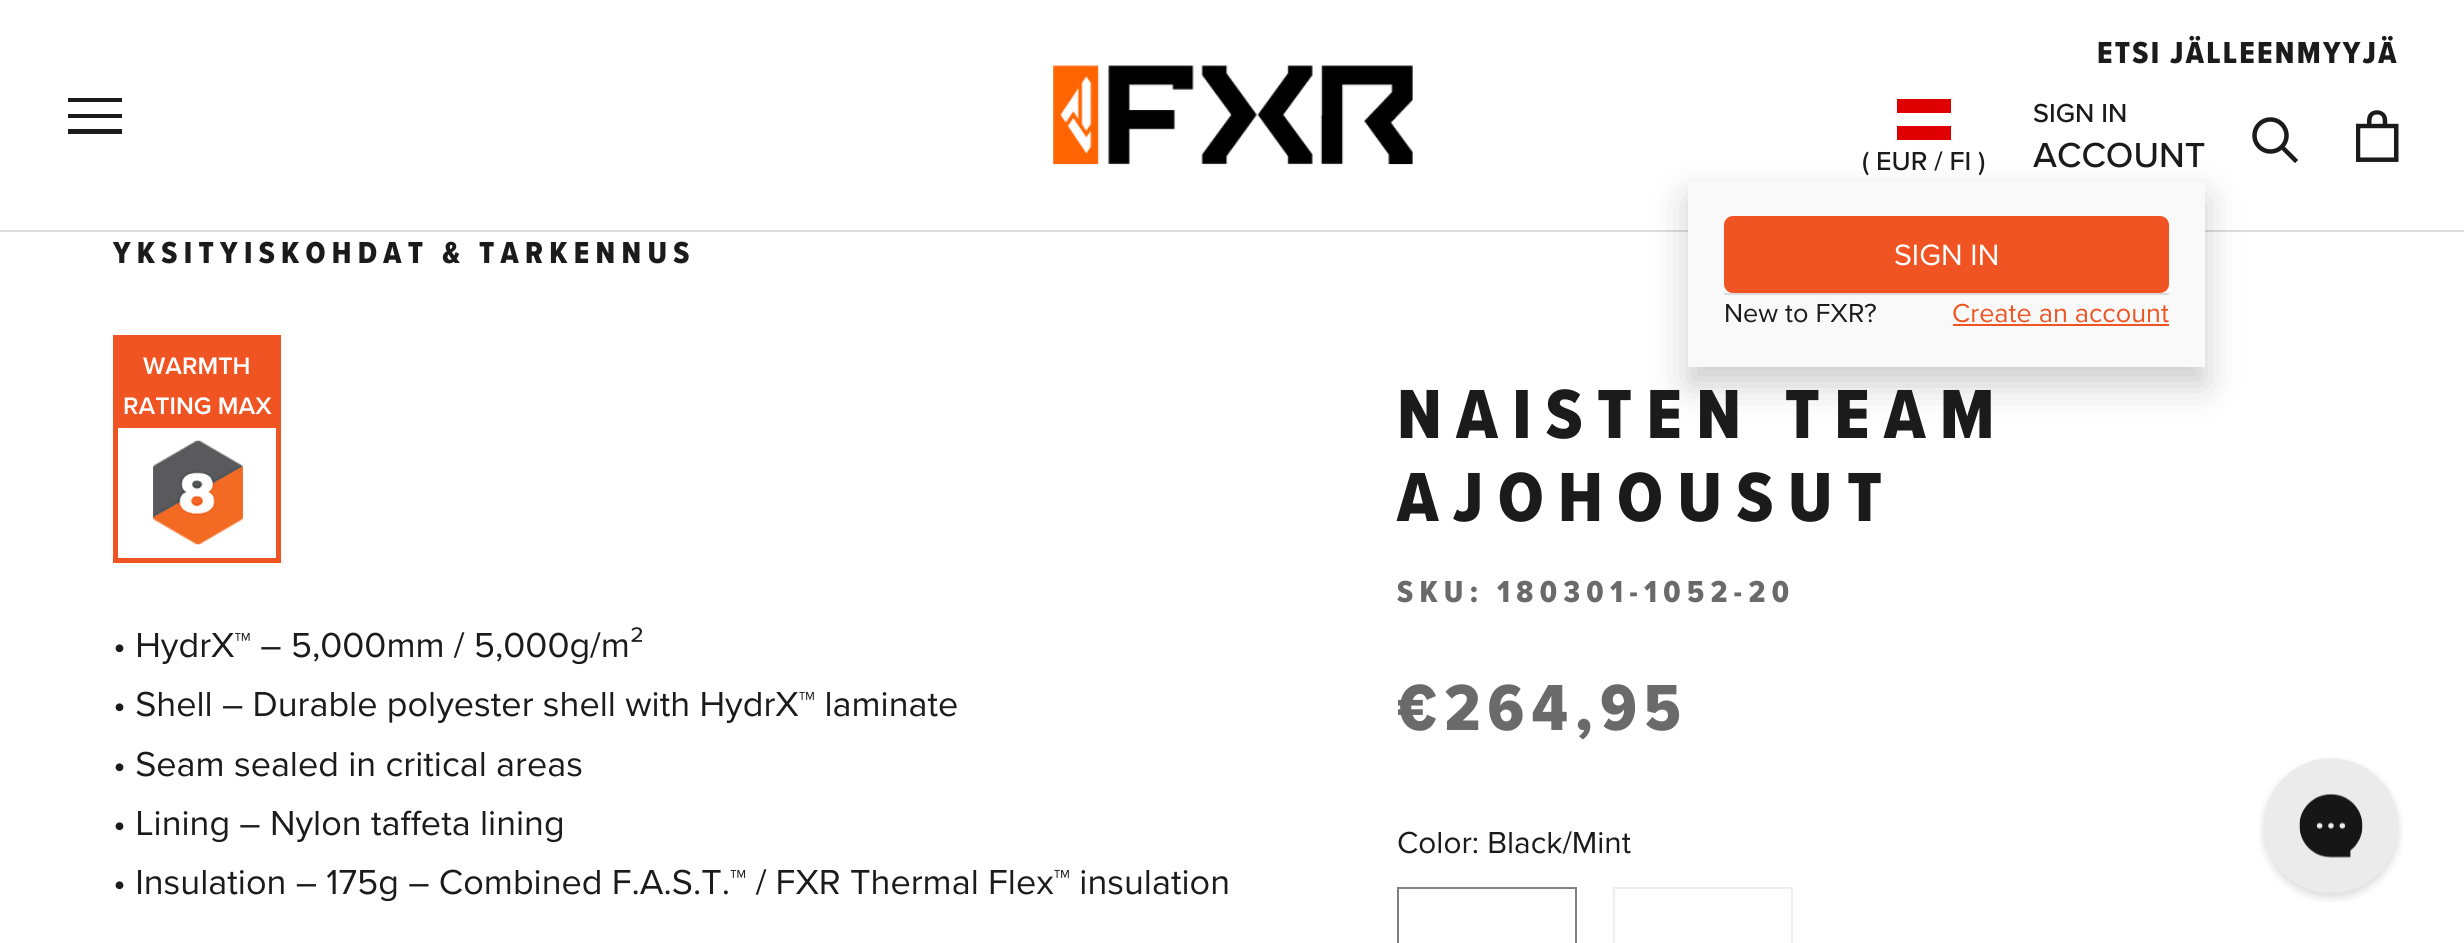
import math
import cairo


def write_spaced(ctx, x, y, s, letter, word):
	ctx.move_to(x, y)
	for ch in s:
		ctx.show_text(ch)
		ctx.rel_move_to(letter + word * (ch == ' '), 0)

def round_path(ctx, x, y, w, h, r):
	ctx.new_sub_path()
	for i, (u, v) in enumerate([(x + w - r, y + h - r), (x + r, y + h - r), (x + r, y + r), (x + w - r, y + r)]):
		ctx.arc(u, v, r, i * math.pi / 2, (i + 1) * math.pi / 2)
	ctx.close_path()

def blur_box(ctx, x, y, w, h, r, blur, alpha):
	ctx.push_group_with_content(cairo.CONTENT_ALPHA)
	ctx.set_operator(cairo.OPERATOR_SOURCE)
	for i in range(15, -16, -2):
		e = blur * i / 6
		if min(w, h) + 2 * e > 0:
			ctx.set_source_rgba(0, 0, 0, alpha * math.erfc((i - 1) / 8.5) / 2)
			round_path(ctx, x - e, y - e, w + 2 * e, h + 2 * e, max(0, min(r + e + blur * .6, min(w, h) / 2 + e)))
			ctx.fill()
	ctx.mask(ctx.pop_group())

def paste(ctx, path, x, y, w, h):
	ctx.save()
	ctx.set_source_surface(cairo.ImageSurface.create_from_png(path), x, y)
	ctx.rectangle(x, y, w, h)
	ctx.fill()
	ctx.restore()

def draw(ctx):
	ctx.set_source_rgb(1, 1, 1)
	ctx.paint()
	ctx.set_source_rgb(0.867, 0.867, 0.867)
	ctx.rectangle(0, 230, 2464, 2)
	ctx.fill()
	ctx.set_source_rgb(0.11, 0.106, 0.106)
	ctx.new_path()
	ctx.move_to(68, 134)
	ctx.line_to(68, 129)
	ctx.line_to(122, 129)
	ctx.line_to(122, 134)
	ctx.close_path()
	ctx.move_to(68, 114)
	ctx.line_to(122, 114)
	ctx.line_to(122, 118)
	ctx.line_to(68, 118)
	ctx.close_path()
	ctx.move_to(68, 98)
	ctx.line_to(122, 98)
	ctx.line_to(122, 102)
	ctx.line_to(68, 102)
	ctx.close_path()
	ctx.fill()
	paste(ctx, 'media/1.png', 1053, 65, 360, 100)
	ctx.select_font_face('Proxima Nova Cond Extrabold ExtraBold')
	ctx.set_font_size(31.5)
	write_spaced(ctx, 2097, 63, 'ETSI JÄLLEENMYYJÄ', 2.25, 0)
	ctx.select_font_face('Proxima Nova Medium')
	ctx.set_font_size(27)
	ctx.move_to(2033, 122)
	ctx.show_text('SIGN IN')
	ctx.set_font_size(36)
	ctx.move_to(2033, 167)
	ctx.show_text('ACCOUNT')
	ctx.set_source_rgb(0, 0, 0)
	blur_box(ctx, 1688, 198, 517, 187, 0, 18, 0.2)
	ctx.set_source_rgb(0.976, 0.976, 0.976)
	ctx.rectangle(1688, 181, 517, 186)
	ctx.fill()
	ctx.set_source_rgb(0.941, 0.329, 0.137)
	round_path(ctx, 1724, 216, 445, 77, 9)
	ctx.fill()
	ctx.select_font_face('Proxima Nova')
	ctx.set_font_size(30.5)
	ctx.set_source_rgb(1, 1, 1)
	ctx.move_to(1894, 265)
	ctx.show_text('SIGN IN')
	ctx.set_source_rgb(0.859, 0.859, 0.859)
	ctx.rectangle(1724, 293, 445, 2)
	ctx.fill()
	ctx.set_font_size(27)
	ctx.set_source_rgb(0.11, 0.106, 0.106)
	ctx.move_to(1724, 322)
	ctx.show_text('New to FXR?')
	ctx.set_source_rgb(0.941, 0.329, 0.137)
	ctx.move_to(1952, 322)
	ctx.show_text('Create an account')
	ctx.rectangle(1953, 324, 216, 2)
	ctx.fill()
	ctx.new_path()
	ctx.move_to(2295, 160)
	ctx.line_to(2282, 147)
	ctx.set_source_rgb(0.11, 0.106, 0.106)
	ctx.set_line_width(4.5)
	ctx.set_line_cap(cairo.LINE_CAP_SQUARE)
	ctx.stroke()
	ctx.arc(2270.5, 135.5, 16, 0, 2 * math.pi)
	ctx.set_line_cap(cairo.LINE_CAP_BUTT)
	ctx.stroke()
	paste(ctx, 'media/2.png', 2356, 110, 43, 52)
	ctx.set_source_rgb(0.875, 0, 0)
	ctx.set_fill_rule(cairo.FILL_RULE_EVEN_ODD)
	ctx.new_path()
	ctx.move_to(1951, 140)
	ctx.line_to(1897, 140)
	ctx.line_to(1897, 126)
	ctx.line_to(1951, 126)
	ctx.close_path()
	ctx.move_to(1951, 113)
	ctx.line_to(1897, 113)
	ctx.line_to(1897, 99)
	ctx.line_to(1951, 99)
	ctx.close_path()
	ctx.fill()
	ctx.select_font_face('Proxima Nova Medium')
	ctx.set_source_rgb(0.11, 0.106, 0.106)
	ctx.move_to(1862, 170)
	ctx.show_text('( EUR / FI )')
	ctx.select_font_face('Proxima Nova Cond Extrabold ExtraBold')
	ctx.set_font_size(31.5)
	write_spaced(ctx, 113, 263, 'YKSITYISKOHDAT & TARKENNUS', 6.3, 0)
	ctx.rectangle(115.5, 337.5, 163, 223)
	ctx.set_source_rgb(0.941, 0.329, 0.137)
	ctx.set_line_width(5)
	ctx.stroke()
	ctx.rectangle(118, 340, 158, 88)
	ctx.fill()
	ctx.select_font_face('Proxima Nova SemiBold')
	ctx.set_font_size(24.75)
	ctx.set_source_rgb(1, 1, 1)
	ctx.move_to(143, 374)
	ctx.show_text('WARMTH')
	ctx.move_to(123, 414)
	ctx.show_text('RATING MAX')
	paste(ctx, 'media/3.png', 153, 440, 90, 105)
	ctx.select_font_face('Proxima Nova')
	ctx.set_font_size(36)
	ctx.set_source_rgb(0.11, 0.106, 0.106)
	for x, y, s in [
		(113, 657, '• HydrX™ – 5,000mm / 5,000g/m²'),
		(113, 716, '• Shell – Durable polyester shell with HydrX™ laminate'),
		(113, 776, '• Seam sealed in critical areas'),
		(113, 835, '• Lining – Nylon taffeta lining'),
		(113, 894, '• Insulation – 175g – Combined F.A.S.T.™ / FXR Thermal Flex™ insulation'),
	]:
		ctx.move_to(x, y)
		ctx.show_text(s)
	ctx.select_font_face('Proxima Nova Cond Extrabold ExtraBold')
	ctx.set_font_size(72)
	write_spaced(ctx, 1397, 438, 'NAISTEN TEAM', 14.4, 0)
	write_spaced(ctx, 1397, 521, 'AJOHOUSUT', 14.4, 0)
	ctx.set_font_size(31.5)
	ctx.set_source_rgb(0.416, 0.416, 0.416)
	write_spaced(ctx, 1397, 602, 'SKU: 180301-1052-20', 6.3, 0)
	ctx.set_font_size(67.5)
	write_spaced(ctx, 1397, 730, '€264,95', 7.25, 0)
	ctx.select_font_face('Proxima Nova')
	ctx.set_font_size(31.5)
	ctx.set_source_rgb(0.11, 0.106, 0.106)
	ctx.move_to(1397, 853)
	ctx.show_text('Color: Black/Mint')
	ctx.rectangle(1398, 888, 178, 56)
	ctx.set_source_rgb(0.502, 0.502, 0.502)
	ctx.set_line_width(2)
	ctx.stroke()
	ctx.rectangle(1614, 888, 178, 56)
	ctx.set_source_rgb(0.933, 0.933, 0.933)
	ctx.stroke()
	paste(ctx, 'media/4.png', 2259, 757, 144, 145)


surface = cairo.ImageSurface(cairo.FORMAT_RGB24, 2464, 943)
ctx = cairo.Context(surface)
options = cairo.FontOptions()
options.set_hint_metrics(cairo.HINT_METRICS_OFF)
options.set_hint_style(cairo.HINT_STYLE_NONE)
ctx.set_font_options(options)
ctx.set_miter_limit(4)
draw(ctx)
surface.write_to_png('image.png')
